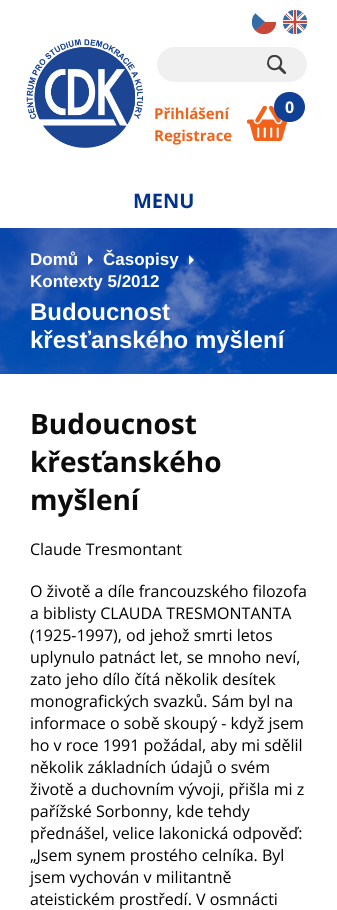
import math
import cairo


def round_path(ctx, x, y, w, h, r):
	ctx.new_sub_path()
	for i, (u, v) in enumerate([(x + w - r, y + h - r), (x + r, y + h - r), (x + r, y + r), (x + w - r, y + r)]):
		ctx.arc(u, v, r, i * math.pi / 2, (i + 1) * math.pi / 2)
	ctx.close_path()

def paste(ctx, path, x, y, w, h):
	ctx.save()
	ctx.set_source_surface(cairo.ImageSurface.create_from_png(path), x, y)
	ctx.rectangle(x, y, w, h)
	ctx.fill()
	ctx.restore()

def draw(ctx):
	ctx.set_source_rgb(1, 1, 1)
	ctx.paint()
	paste(ctx, 'media/1.png', 26, 39, 117, 109)
	paste(ctx, 'media/2.png', 252, 13, 24, 21)
	paste(ctx, 'media/3.png', 283, 10, 24, 24)
	ctx.set_source_rgb(0.941, 0.941, 0.941)
	round_path(ctx, 157, 47, 150, 35, 17.5)
	ctx.fill()
	paste(ctx, 'media/4.png', 267, 55, 19, 19)
	ctx.select_font_face('Open Sans', cairo.FONT_SLANT_NORMAL, cairo.FONT_WEIGHT_BOLD)
	ctx.set_font_size(15)
	ctx.set_source_rgb(0.945, 0.388, 0.102)
	ctx.move_to(154, 119)
	ctx.show_text('Přihlášení')
	ctx.move_to(154, 141)
	ctx.show_text('Registrace')
	paste(ctx, 'media/5.png', 247, 106, 40, 35)
	ctx.set_source_rgb(0.059, 0.251, 0.588)
	round_path(ctx, 274, 92, 31, 30, 15)
	ctx.fill()
	ctx.set_font_size(16)
	ctx.set_source_rgb(1, 1, 1)
	ctx.move_to(285, 113)
	ctx.show_text('0')
	ctx.set_font_size(20)
	ctx.set_source_rgb(0.008, 0.196, 0.557)
	ctx.move_to(133, 208)
	ctx.show_text('MENU')
	paste(ctx, 'media/8.png', 0, 228, 337, 146)
	paste(ctx, 'media/6.png', 88, 255, 5, 10)
	ctx.select_font_face('Liberation Sans', cairo.FONT_SLANT_NORMAL, cairo.FONT_WEIGHT_BOLD)
	ctx.set_font_size(17)
	ctx.set_source_rgb(1, 1, 1)
	ctx.move_to(30, 265)
	ctx.show_text('Domů')
	paste(ctx, 'media/7.png', 189, 255, 5, 10)
	ctx.move_to(103, 265)
	ctx.show_text('Časopisy')
	ctx.move_to(30, 287)
	ctx.show_text('Kontexty 5/2012')
	ctx.set_font_size(24)
	ctx.move_to(30, 320)
	ctx.show_text('Budoucnost')
	ctx.move_to(30, 348)
	ctx.show_text('křesťanského myšlení')
	ctx.select_font_face('Open Sans', cairo.FONT_SLANT_NORMAL, cairo.FONT_WEIGHT_BOLD)
	ctx.set_font_size(28)
	ctx.set_source_rgb(0.047, 0.047, 0.047)
	for x, y, s in [
		(30, 434, 'Budoucnost'),
		(30, 472, 'křesťanského'),
		(30, 510, 'myšlení'),
	]:
		ctx.move_to(x, y)
		ctx.show_text(s)
	ctx.select_font_face('Open Sans')
	ctx.set_font_size(16)
	ctx.set_source_rgb(0, 0, 0)
	for x, y, s in [
		(30, 555, 'Claude Tresmontant'),
		(30, 597, 'O životě a díle francouzského filozofa'),
		(30, 619, 'a biblisty CLAUDA TRESMONTANTA'),
		(30, 641, '(1925-1997), od jehož smrti letos'),
		(30, 663, 'uplynulo patnáct let, se mnoho neví,'),
		(30, 685, 'zato jeho dílo čítá několik desítek'),
		(30, 707, 'monografických svazků. Sám byl na'),
		(30, 729, 'informace o sobě skoupý - když jsem'),
		(30, 751, 'ho v roce 1991 požádal, aby mi sdělil'),
		(30, 773, 'několik základních údajů o svém'),
		(30, 795, 'životě a duchovním vývoji, přišla mi z'),
		(30, 817, 'pařížské Sorbonny, kde tehdy'),
		(30, 839, 'přednášel, velice lakonická odpověď:'),
		(30, 861, '„Jsem synem prostého celníka. Byl'),
		(30, 883, 'jsem vychován v militantně'),
		(30, 905, 'ateistickém prostředí. V osmnácti'),
	]:
		ctx.move_to(x, y)
		ctx.show_text(s)


surface = cairo.ImageSurface(cairo.FORMAT_RGB24, 337, 910)
ctx = cairo.Context(surface)
options = cairo.FontOptions()
options.set_hint_metrics(cairo.HINT_METRICS_OFF)
options.set_hint_style(cairo.HINT_STYLE_NONE)
ctx.set_font_options(options)
ctx.set_miter_limit(4)
draw(ctx)
surface.write_to_png('image.png')
